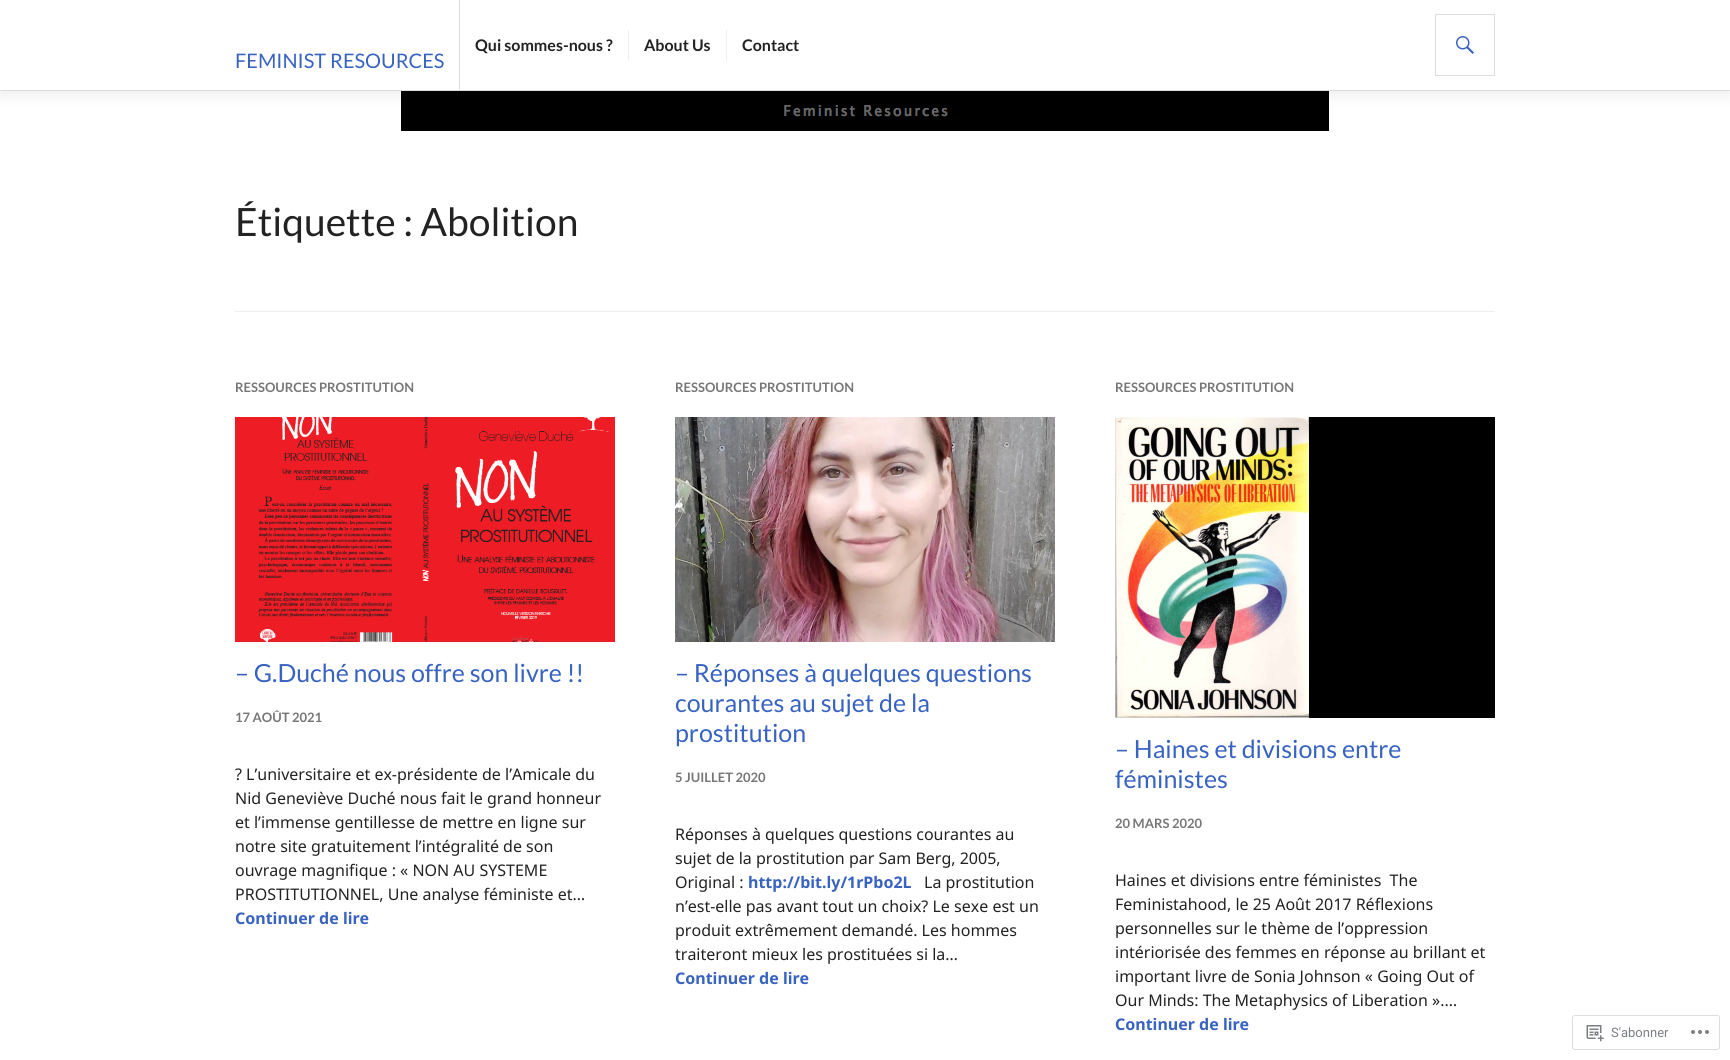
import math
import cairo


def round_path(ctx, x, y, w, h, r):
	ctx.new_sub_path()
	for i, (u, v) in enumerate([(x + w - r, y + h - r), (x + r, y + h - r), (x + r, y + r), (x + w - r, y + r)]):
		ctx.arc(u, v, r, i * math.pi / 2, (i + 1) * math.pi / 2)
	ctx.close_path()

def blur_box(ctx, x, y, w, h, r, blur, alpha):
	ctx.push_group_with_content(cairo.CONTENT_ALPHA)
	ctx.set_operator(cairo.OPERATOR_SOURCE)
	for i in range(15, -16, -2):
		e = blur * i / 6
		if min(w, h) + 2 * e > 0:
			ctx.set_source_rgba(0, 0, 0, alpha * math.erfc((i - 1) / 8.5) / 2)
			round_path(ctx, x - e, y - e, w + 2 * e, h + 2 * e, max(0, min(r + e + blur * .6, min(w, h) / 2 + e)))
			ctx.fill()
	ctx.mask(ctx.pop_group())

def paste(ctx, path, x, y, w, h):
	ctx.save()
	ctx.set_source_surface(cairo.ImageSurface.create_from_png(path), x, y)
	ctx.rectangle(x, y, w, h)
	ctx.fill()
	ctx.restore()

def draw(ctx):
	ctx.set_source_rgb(1, 1, 1)
	ctx.paint()
	paste(ctx, 'media/2.png', 401, 91, 928, 40)
	ctx.set_source_rgb(0, 0, 0)
	blur_box(ctx, 0, 5, 1730, 91, 0, 7.5, 0.07)
	ctx.set_source_rgb(1, 1, 1)
	ctx.rectangle(0, 0, 1730, 90)
	ctx.fill()
	ctx.set_source_rgb(0.867, 0.867, 0.867)
	ctx.rectangle(0, 90, 1730, 1)
	ctx.fill()
	ctx.select_font_face('Lato', cairo.FONT_SLANT_NORMAL, cairo.FONT_WEIGHT_BOLD)
	ctx.set_font_size(16)
	ctx.set_source_rgb(0.133, 0.133, 0.133)
	ctx.move_to(475, 51)
	ctx.show_text('Qui sommes-nous ?')
	ctx.set_source_rgb(0.933, 0.933, 0.933)
	ctx.rectangle(628, 30, 1, 30)
	ctx.fill()
	ctx.set_source_rgb(0.133, 0.133, 0.133)
	ctx.move_to(644, 51)
	ctx.show_text('About Us')
	ctx.set_source_rgb(0.933, 0.933, 0.933)
	ctx.rectangle(726, 30, 1, 30)
	ctx.fill()
	ctx.set_source_rgb(0.133, 0.133, 0.133)
	ctx.move_to(742, 51)
	ctx.show_text('Contact')
	ctx.rectangle(1435.5, 14.5, 59, 61)
	ctx.set_source_rgb(0.867, 0.867, 0.867)
	ctx.set_line_width(1)
	ctx.stroke()
	paste(ctx, 'media/1.png', 1456, 36, 18, 18)
	ctx.select_font_face('Lato')
	ctx.set_font_size(20)
	ctx.set_source_rgb(0.22, 0.388, 0.757)
	ctx.move_to(235, 68)
	ctx.show_text('FEMINIST RESOURCES')
	ctx.set_source_rgb(0.867, 0.867, 0.867)
	ctx.rectangle(459, 0, 1, 90)
	ctx.fill()
	ctx.set_source_rgb(0.933, 0.933, 0.933)
	ctx.rectangle(235, 311, 1260, 1)
	ctx.fill()
	ctx.set_font_size(39)
	ctx.set_source_rgb(0.133, 0.133, 0.133)
	ctx.move_to(235, 236)
	ctx.show_text('Étiquette : Abolition')
	ctx.select_font_face('Lato', cairo.FONT_SLANT_NORMAL, cairo.FONT_WEIGHT_BOLD)
	ctx.set_font_size(13)
	ctx.set_source_rgb(0.467, 0.467, 0.467)
	ctx.move_to(235, 392)
	ctx.show_text('RESSOURCES PROSTITUTION')
	paste(ctx, 'media/3.png', 235, 417, 380, 225)
	ctx.select_font_face('Lato')
	ctx.set_font_size(25)
	ctx.set_source_rgb(0.22, 0.388, 0.757)
	ctx.move_to(235, 682)
	ctx.show_text('– G.Duché nous offre son livre !!')
	ctx.select_font_face('Lato', cairo.FONT_SLANT_NORMAL, cairo.FONT_WEIGHT_BOLD)
	ctx.set_font_size(13)
	ctx.set_source_rgb(0.467, 0.467, 0.467)
	ctx.move_to(235, 722)
	ctx.show_text('17 AOÛT 2021')
	ctx.select_font_face('Noto Sans')
	ctx.set_font_size(16)
	ctx.set_source_rgb(0.133, 0.133, 0.133)
	for x, y, s in [
		(235, 780, '? L’universitaire et ex-présidente de l’Amicale du'),
		(235, 804, 'Nid Geneviève Duché nous fait le grand honneur'),
		(235, 828, 'et l’immense gentillesse de mettre en ligne sur'),
		(235, 852, 'notre site gratuitement l’intégralité de son'),
		(235, 876, 'ouvrage magnifique : « NON AU SYSTEME'),
		(235, 900, 'PROSTITUTIONNEL, Une analyse féministe et…'),
	]:
		ctx.move_to(x, y)
		ctx.show_text(s)
	ctx.select_font_face('Noto Sans', cairo.FONT_SLANT_NORMAL, cairo.FONT_WEIGHT_BOLD)
	ctx.set_source_rgb(0.22, 0.388, 0.757)
	ctx.move_to(235, 924)
	ctx.show_text('Continuer de lire')
	ctx.select_font_face('Lato', cairo.FONT_SLANT_NORMAL, cairo.FONT_WEIGHT_BOLD)
	ctx.set_font_size(13)
	ctx.set_source_rgb(0.467, 0.467, 0.467)
	ctx.move_to(675, 392)
	ctx.show_text('RESSOURCES PROSTITUTION')
	paste(ctx, 'media/4.png', 675, 417, 380, 225)
	ctx.select_font_face('Lato')
	ctx.set_font_size(25)
	ctx.set_source_rgb(0.22, 0.388, 0.757)
	for x, y, s in [
		(675, 682, '– Réponses à quelques questions'),
		(675, 712, 'courantes au sujet de la'),
		(675, 742, 'prostitution'),
	]:
		ctx.move_to(x, y)
		ctx.show_text(s)
	ctx.select_font_face('Lato', cairo.FONT_SLANT_NORMAL, cairo.FONT_WEIGHT_BOLD)
	ctx.set_font_size(13)
	ctx.set_source_rgb(0.467, 0.467, 0.467)
	ctx.move_to(675, 782)
	ctx.show_text('5 JUILLET 2020')
	ctx.select_font_face('Noto Sans')
	ctx.set_font_size(16)
	ctx.set_source_rgb(0.133, 0.133, 0.133)
	for x, y, s in [
		(675, 840, 'Réponses à quelques questions courantes au'),
		(675, 864, 'sujet de la prostitution par Sam Berg, 2005,'),
		(675, 888, 'Original :'),
	]:
		ctx.move_to(x, y)
		ctx.show_text(s)
	ctx.select_font_face('Noto Sans', cairo.FONT_SLANT_NORMAL, cairo.FONT_WEIGHT_BOLD)
	ctx.set_source_rgb(0.22, 0.388, 0.757)
	ctx.move_to(748, 888)
	ctx.show_text('http://bit.ly/1rPbo2L')
	ctx.select_font_face('Noto Sans')
	ctx.set_source_rgb(0.133, 0.133, 0.133)
	for x, y, s in [
		(924, 888, 'La prostitution'),
		(675, 912, 'n’est-elle pas avant tout un choix? Le sexe est un'),
		(675, 936, 'produit extrêmement demandé. Les hommes'),
		(675, 960, 'traiteront mieux les prostituées si la…'),
	]:
		ctx.move_to(x, y)
		ctx.show_text(s)
	ctx.select_font_face('Noto Sans', cairo.FONT_SLANT_NORMAL, cairo.FONT_WEIGHT_BOLD)
	ctx.set_source_rgb(0.22, 0.388, 0.757)
	ctx.move_to(675, 984)
	ctx.show_text('Continuer de lire')
	ctx.select_font_face('Lato', cairo.FONT_SLANT_NORMAL, cairo.FONT_WEIGHT_BOLD)
	ctx.set_font_size(13)
	ctx.set_source_rgb(0.467, 0.467, 0.467)
	ctx.move_to(1115, 392)
	ctx.show_text('RESSOURCES PROSTITUTION')
	ctx.set_source_rgb(0, 0, 0)
	ctx.rectangle(1309, 417, 186, 301)
	ctx.fill()
	paste(ctx, 'media/5.png', 1115, 417, 194, 301)
	ctx.select_font_face('Lato')
	ctx.set_font_size(25)
	ctx.set_source_rgb(0.22, 0.388, 0.757)
	ctx.move_to(1115, 758)
	ctx.show_text('– Haines et divisions entre')
	ctx.move_to(1115, 788)
	ctx.show_text('féministes')
	ctx.select_font_face('Lato', cairo.FONT_SLANT_NORMAL, cairo.FONT_WEIGHT_BOLD)
	ctx.set_font_size(13)
	ctx.set_source_rgb(0.467, 0.467, 0.467)
	ctx.move_to(1115, 828)
	ctx.show_text('20 MARS 2020')
	ctx.select_font_face('Noto Sans')
	ctx.set_font_size(16)
	ctx.set_source_rgb(0.133, 0.133, 0.133)
	for x, y, s in [
		(1115, 886, 'Haines et divisions entre féministes  The'),
		(1115, 910, 'Feministahood, le 25 Août 2017 Réflexions'),
		(1115, 934, 'personnelles sur le thème de l’oppression'),
		(1115, 958, 'intériorisée des femmes en réponse au brillant et'),
		(1115, 982, 'important livre de Sonia Johnson « Going Out of'),
		(1115, 1006, 'Our Minds: The Metaphysics of Liberation ».…'),
	]:
		ctx.move_to(x, y)
		ctx.show_text(s)
	ctx.select_font_face('Noto Sans', cairo.FONT_SLANT_NORMAL, cairo.FONT_WEIGHT_BOLD)
	ctx.set_source_rgb(0.22, 0.388, 0.757)
	ctx.move_to(1115, 1030)
	ctx.show_text('Continuer de lire')
	round_path(ctx, 1572.5, 1015.5, 147, 34, 2.5)
	ctx.set_source_rgb(0.867, 0.867, 0.875)
	ctx.stroke()
	paste(ctx, 'media/6.png', 1586, 1025, 18, 17)
	ctx.select_font_face('Roboto')
	ctx.set_font_size(13)
	ctx.set_source_rgb(0.482, 0.498, 0.522)
	ctx.move_to(1611, 1037)
	ctx.show_text('S\'abonner')
	paste(ctx, 'media/7.png', 1691, 1030, 18, 4)


surface = cairo.ImageSurface(cairo.FORMAT_RGB24, 1730, 1060)
ctx = cairo.Context(surface)
options = cairo.FontOptions()
options.set_hint_metrics(cairo.HINT_METRICS_OFF)
options.set_hint_style(cairo.HINT_STYLE_NONE)
ctx.set_font_options(options)
ctx.set_miter_limit(4)
draw(ctx)
surface.write_to_png('image.png')
